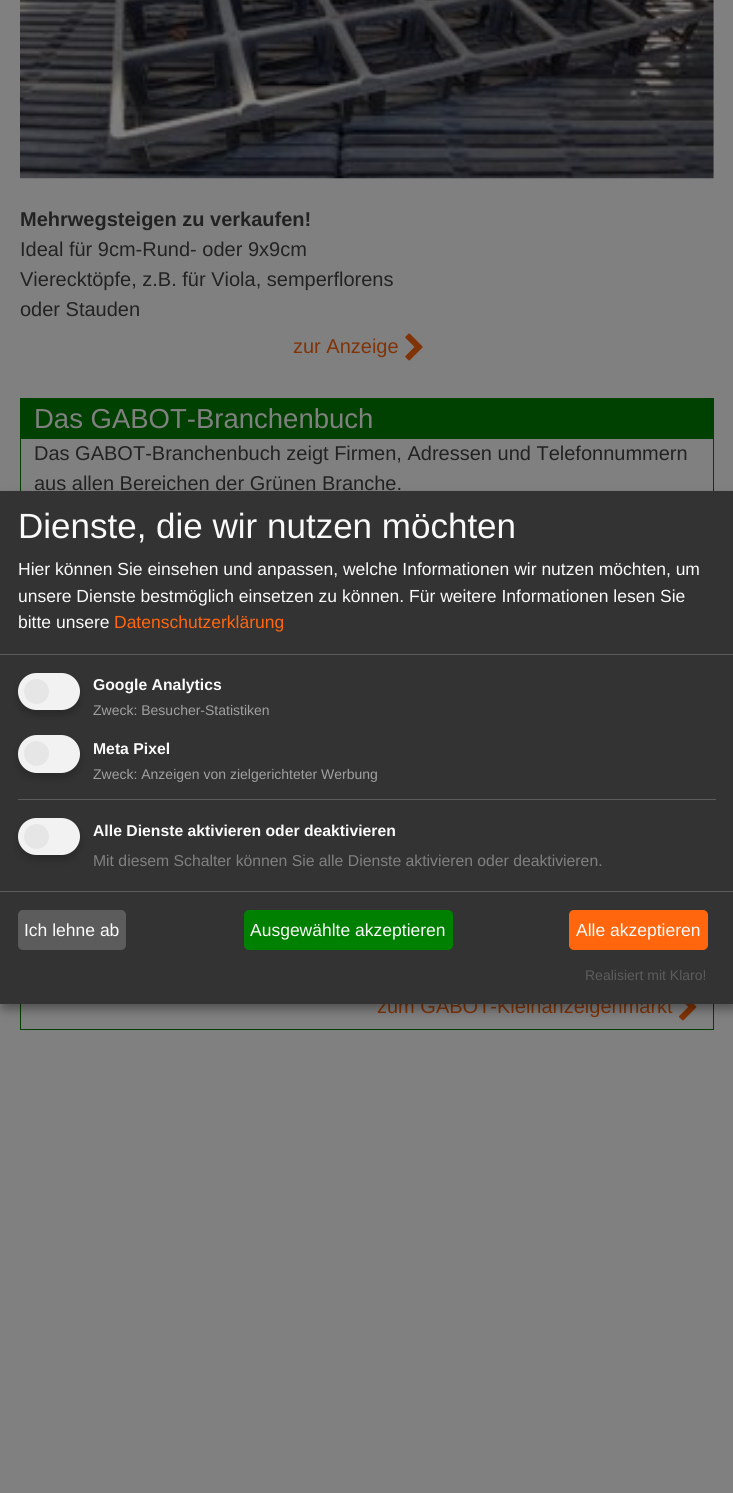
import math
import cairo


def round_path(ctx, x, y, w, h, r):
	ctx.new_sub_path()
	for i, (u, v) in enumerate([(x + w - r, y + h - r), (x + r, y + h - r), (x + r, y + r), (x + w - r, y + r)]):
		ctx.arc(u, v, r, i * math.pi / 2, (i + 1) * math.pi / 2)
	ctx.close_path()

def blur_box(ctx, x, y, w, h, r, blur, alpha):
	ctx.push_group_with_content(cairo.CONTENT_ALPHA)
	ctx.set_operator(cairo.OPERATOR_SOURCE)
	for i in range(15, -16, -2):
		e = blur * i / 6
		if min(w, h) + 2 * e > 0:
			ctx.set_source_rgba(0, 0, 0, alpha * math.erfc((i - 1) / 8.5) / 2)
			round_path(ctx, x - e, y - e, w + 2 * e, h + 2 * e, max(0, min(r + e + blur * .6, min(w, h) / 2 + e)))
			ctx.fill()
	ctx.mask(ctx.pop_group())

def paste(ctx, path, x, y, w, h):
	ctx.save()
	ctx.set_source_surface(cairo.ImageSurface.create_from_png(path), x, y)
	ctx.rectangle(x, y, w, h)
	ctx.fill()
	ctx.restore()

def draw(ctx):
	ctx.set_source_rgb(0.502, 0.502, 0.502)
	ctx.paint()
	paste(ctx, 'media/1.png', 20, 0, 694, 179)
	ctx.select_font_face('Liberation Sans', cairo.FONT_SLANT_NORMAL, cairo.FONT_WEIGHT_BOLD)
	ctx.set_font_size(20)
	ctx.set_source_rgb(0.133, 0.133, 0.133)
	ctx.move_to(20, 226)
	ctx.show_text('Mehrwegsteigen zu verkaufen!')
	ctx.select_font_face('Liberation Sans')
	for x, y, s in [
		(20, 256, 'Ideal für 9cm-Rund- oder 9x9cm'),
		(20, 286, 'Vierecktöpfe, z.B. für Viola, semperflorens'),
		(20, 316, 'oder Stauden'),
	]:
		ctx.move_to(x, y)
		ctx.show_text(s)
	ctx.set_source_rgb(0.502, 0.2, 0.027)
	ctx.move_to(293, 353)
	ctx.show_text('zur Anzeige')
	paste(ctx, 'media/2.png', 405, 333, 18, 28)
	ctx.rectangle(20.5, 398.5, 693, 145)
	ctx.set_source_rgb(0, 0.251, 0)
	ctx.set_line_width(1)
	ctx.stroke()
	ctx.rectangle(21, 399, 692, 40)
	ctx.fill()
	ctx.set_font_size(27.5)
	ctx.set_source_rgb(0.502, 0.502, 0.502)
	ctx.move_to(34, 428)
	ctx.show_text('Das GABOT-Branchenbuch')
	ctx.set_font_size(20)
	ctx.set_source_rgb(0.133, 0.133, 0.133)
	ctx.move_to(34, 460)
	ctx.show_text('Das GABOT-Branchenbuch zeigt Firmen, Adressen und Telefonnummern')
	ctx.move_to(34, 490)
	ctx.show_text('aus allen Bereichen der Grünen Branche.')
	ctx.rectangle(20.5, 854.5, 693, 175)
	ctx.set_source_rgb(0, 0.251, 0)
	ctx.stroke()
	ctx.set_source_rgb(0.502, 0.2, 0.027)
	ctx.move_to(377, 1013)
	ctx.show_text('zum GABOT-Kleinanzeigenmarkt')
	paste(ctx, 'media/3.png', 679, 1004, 18, 17)
	ctx.set_source_rgb(0, 0, 0)
	blur_box(ctx, 6, 498, 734, 512, 0, 6, 0.19)
	blur_box(ctx, 0, 496, 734, 513, 0, 4, 0.2)
	ctx.set_source_rgb(0.2, 0.2, 0.2)
	ctx.rectangle(0, 491, 733, 513)
	ctx.fill()
	ctx.set_source_rgb(0.361, 0.361, 0.361)
	ctx.rectangle(0, 654, 733, 1)
	ctx.fill()
	ctx.set_font_size(35)
	ctx.set_source_rgb(0.98, 0.98, 0.98)
	ctx.move_to(18, 538)
	ctx.show_text('Dienste, die wir nutzen möchten')
	ctx.set_font_size(17.5)
	for x, y, s in [
		(18, 575, 'Hier können Sie einsehen und anpassen, welche Informationen wir nutzen möchten, um'),
		(18, 602, 'unsere Dienste bestmöglich einsetzen zu können. Für weitere Informationen lesen Sie'),
		(18, 628, 'bitte unsere'),
	]:
		ctx.move_to(x, y)
		ctx.show_text(s)
	ctx.set_source_rgb(1, 0.4, 0.051)
	ctx.move_to(114, 628)
	ctx.show_text('Datenschutzerklärung')
	ctx.set_source_rgb(0, 0, 0)
	blur_box(ctx, 18, 678, 62, 37, 18.5, 4, 0.2)
	ctx.set_source_rgb(0.949, 0.949, 0.949)
	round_path(ctx, 18, 673, 62, 37, 18.5)
	ctx.fill()
	ctx.set_source_rgb(0.902, 0.902, 0.902)
	ctx.arc(36.5, 691.5, 12.5, 0, 2 * math.pi)
	ctx.fill()
	ctx.select_font_face('Liberation Sans', cairo.FONT_SLANT_NORMAL, cairo.FONT_WEIGHT_BOLD)
	ctx.set_font_size(15.75)
	ctx.set_source_rgb(0.98, 0.98, 0.98)
	ctx.move_to(93, 690)
	ctx.show_text('Google Analytics')
	ctx.select_font_face('Liberation Sans')
	ctx.set_font_size(14)
	ctx.set_source_rgb(0.627, 0.627, 0.627)
	ctx.move_to(93, 715)
	ctx.show_text('Zweck: Besucher-Statistiken')
	ctx.set_source_rgb(0, 0, 0)
	blur_box(ctx, 18, 740, 62, 38, 19, 4, 0.2)
	ctx.set_source_rgb(0.949, 0.949, 0.949)
	round_path(ctx, 18, 735, 62, 38, 19)
	ctx.fill()
	ctx.set_source_rgb(0.902, 0.902, 0.902)
	ctx.arc(36.5, 753.5, 12.5, 0, 2 * math.pi)
	ctx.fill()
	ctx.select_font_face('Liberation Sans', cairo.FONT_SLANT_NORMAL, cairo.FONT_WEIGHT_BOLD)
	ctx.set_font_size(15.75)
	ctx.set_source_rgb(0.98, 0.98, 0.98)
	ctx.move_to(93, 754)
	ctx.show_text('Meta Pixel')
	ctx.select_font_face('Liberation Sans')
	ctx.set_font_size(14)
	ctx.set_source_rgb(0.627, 0.627, 0.627)
	ctx.move_to(93, 779)
	ctx.show_text('Zweck: Anzeigen von zielgerichteter Werbung')
	ctx.set_source_rgb(0.361, 0.361, 0.361)
	ctx.rectangle(18, 799, 698, 1)
	ctx.fill()
	ctx.set_source_rgb(0, 0, 0)
	blur_box(ctx, 18, 823, 62, 37, 18.5, 4, 0.2)
	ctx.set_source_rgb(0.949, 0.949, 0.949)
	round_path(ctx, 18, 818, 62, 37, 18.5)
	ctx.fill()
	ctx.set_source_rgb(0.902, 0.902, 0.902)
	ctx.arc(36.5, 836.5, 12.5, 0, 2 * math.pi)
	ctx.fill()
	ctx.select_font_face('Liberation Sans', cairo.FONT_SLANT_NORMAL, cairo.FONT_WEIGHT_BOLD)
	ctx.set_font_size(15.75)
	ctx.set_source_rgb(0.98, 0.98, 0.98)
	ctx.move_to(93, 836)
	ctx.show_text('Alle Dienste aktivieren oder deaktivieren')
	ctx.select_font_face('Liberation Sans')
	ctx.set_source_rgb(0.502, 0.502, 0.502)
	ctx.move_to(93, 866)
	ctx.show_text('Mit diesem Schalter können Sie alle Dienste aktivieren oder deaktivieren.')
	ctx.set_source_rgb(0.361, 0.361, 0.361)
	ctx.rectangle(0, 891, 733, 1)
	ctx.fill()
	round_path(ctx, 18, 910, 108, 40, 5)
	ctx.fill()
	ctx.set_font_size(17.5)
	ctx.set_source_rgb(0.98, 0.98, 0.98)
	ctx.move_to(24, 936)
	ctx.show_text('Ich lehne ab')
	ctx.set_source_rgb(0, 0.502, 0)
	round_path(ctx, 244, 910, 209, 40, 5)
	ctx.fill()
	ctx.set_source_rgb(0.98, 0.98, 0.98)
	ctx.move_to(250, 936)
	ctx.show_text('Ausgewählte akzeptieren')
	ctx.set_source_rgb(1, 0.4, 0.051)
	round_path(ctx, 569, 910, 139, 40, 5)
	ctx.fill()
	ctx.set_source_rgb(0.98, 0.98, 0.98)
	ctx.move_to(576, 936)
	ctx.show_text('Alle akzeptieren')
	ctx.set_font_size(14)
	ctx.set_source_rgb(0.361, 0.361, 0.361)
	ctx.move_to(585, 980)
	ctx.show_text('Realisiert mit Klaro!')


surface = cairo.ImageSurface(cairo.FORMAT_RGB24, 733, 1493)
ctx = cairo.Context(surface)
options = cairo.FontOptions()
options.set_hint_metrics(cairo.HINT_METRICS_OFF)
options.set_hint_style(cairo.HINT_STYLE_NONE)
ctx.set_font_options(options)
ctx.set_miter_limit(4)
draw(ctx)
surface.write_to_png('image.png')
